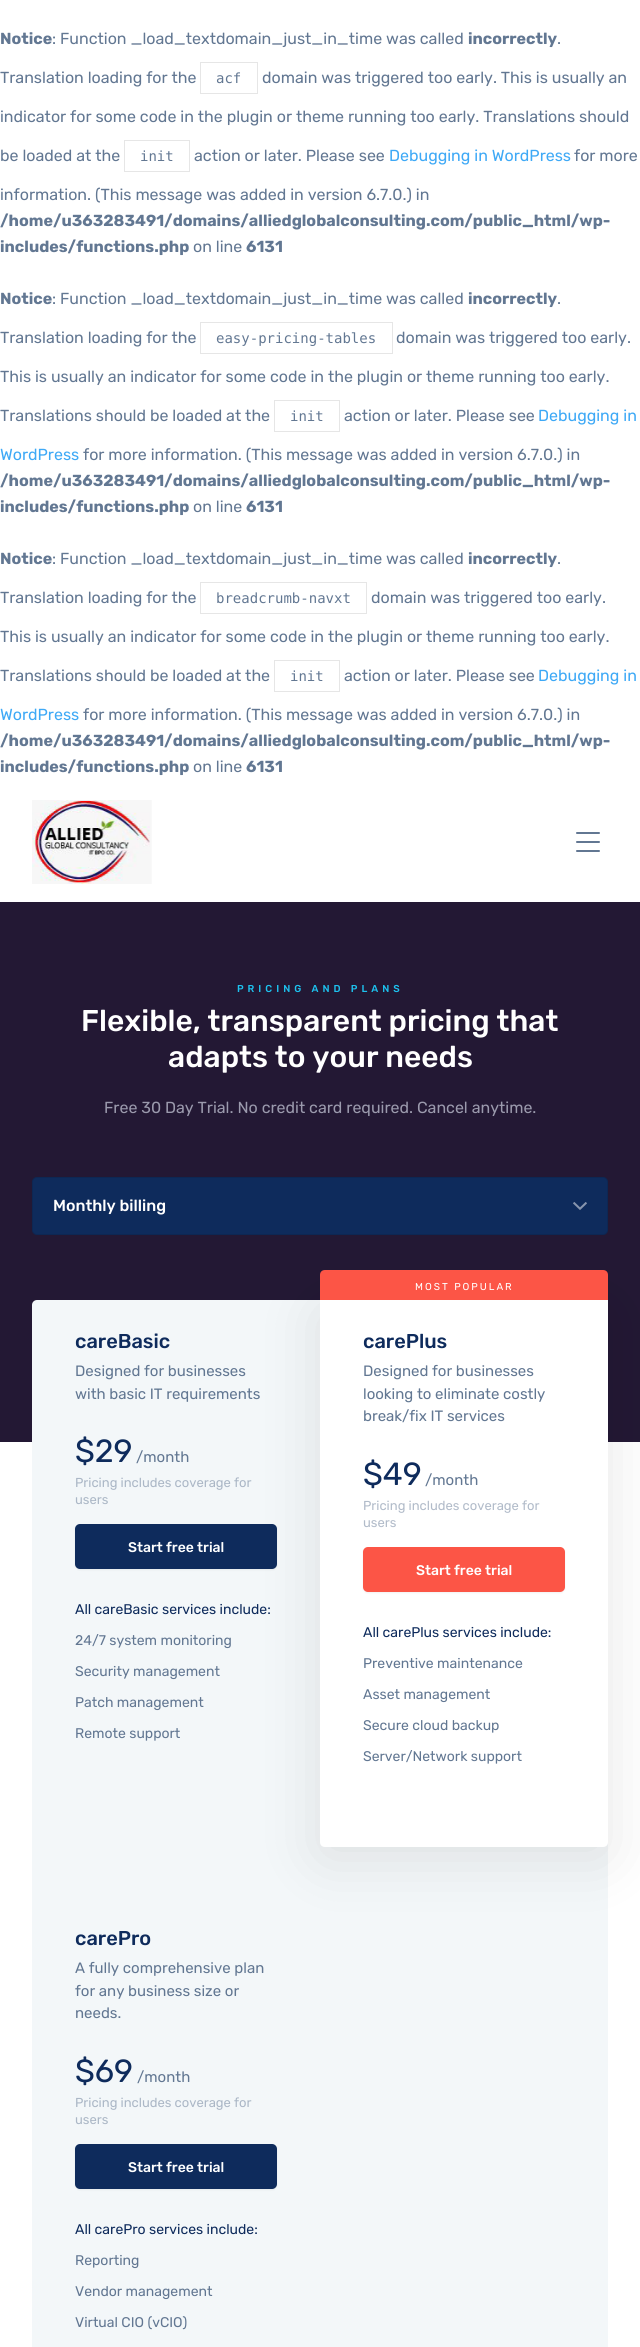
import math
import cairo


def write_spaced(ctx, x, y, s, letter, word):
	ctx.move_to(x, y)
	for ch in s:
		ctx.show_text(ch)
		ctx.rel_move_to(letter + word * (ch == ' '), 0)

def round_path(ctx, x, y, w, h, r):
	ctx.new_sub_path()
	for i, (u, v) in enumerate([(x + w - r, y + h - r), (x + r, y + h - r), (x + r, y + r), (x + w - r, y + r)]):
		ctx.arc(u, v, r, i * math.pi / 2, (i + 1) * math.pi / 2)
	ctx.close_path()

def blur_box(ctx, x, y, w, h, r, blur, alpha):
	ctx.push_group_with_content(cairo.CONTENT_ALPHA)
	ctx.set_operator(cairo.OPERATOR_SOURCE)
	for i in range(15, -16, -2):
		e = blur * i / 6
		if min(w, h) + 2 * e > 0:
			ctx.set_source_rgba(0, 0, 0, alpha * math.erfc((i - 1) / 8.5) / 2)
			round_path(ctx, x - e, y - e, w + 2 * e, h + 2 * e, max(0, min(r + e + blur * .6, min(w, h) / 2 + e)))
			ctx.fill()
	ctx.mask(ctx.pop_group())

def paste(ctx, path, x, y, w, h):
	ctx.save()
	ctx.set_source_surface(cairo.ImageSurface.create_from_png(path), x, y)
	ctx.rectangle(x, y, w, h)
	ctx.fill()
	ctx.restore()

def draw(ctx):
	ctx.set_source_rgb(1, 1, 1)
	ctx.paint()
	ctx.select_font_face('Rubik', cairo.FONT_SLANT_NORMAL, cairo.FONT_WEIGHT_BOLD)
	ctx.set_font_size(16)
	ctx.set_source_rgb(0.384, 0.467, 0.573)
	ctx.move_to(0, 44)
	ctx.show_text('Notice')
	ctx.select_font_face('Rubik')
	ctx.move_to(52, 44)
	ctx.show_text(': Function _load_textdomain_just_in_time was called')
	ctx.select_font_face('Rubik', cairo.FONT_SLANT_NORMAL, cairo.FONT_WEIGHT_BOLD)
	ctx.move_to(468, 44)
	ctx.show_text('incorrectly')
	ctx.select_font_face('Rubik')
	ctx.move_to(557, 44)
	ctx.show_text('.')
	ctx.move_to(0, 83)
	ctx.show_text('Translation loading for the')
	ctx.rectangle(200.5, 62.5, 57, 31)
	ctx.set_source_rgb(0.902, 0.902, 0.902)
	ctx.set_line_width(1)
	ctx.stroke()
	ctx.select_font_face('DejaVu Sans Mono')
	ctx.set_font_size(14)
	ctx.set_source_rgb(0.384, 0.467, 0.573)
	ctx.move_to(216, 83)
	ctx.show_text('acf')
	ctx.select_font_face('Rubik')
	ctx.set_font_size(16)
	for x, y, s in [
		(262, 83, 'domain was triggered too early. This is usually an'),
		(0, 122, 'indicator for some code in the plugin or theme running too early. Translations should'),
		(0, 161, 'be loaded at the'),
	]:
		ctx.move_to(x, y)
		ctx.show_text(s)
	ctx.rectangle(124.5, 140.5, 65, 31)
	ctx.set_source_rgb(0.902, 0.902, 0.902)
	ctx.stroke()
	ctx.select_font_face('DejaVu Sans Mono')
	ctx.set_font_size(14)
	ctx.set_source_rgb(0.384, 0.467, 0.573)
	ctx.move_to(140, 161)
	ctx.show_text('init')
	ctx.select_font_face('Rubik')
	ctx.set_font_size(16)
	ctx.move_to(194, 161)
	ctx.show_text('action or later. Please see')
	ctx.set_source_rgb(0.243, 0.663, 0.961)
	ctx.move_to(389, 161)
	ctx.show_text('Debugging in WordPress')
	ctx.set_source_rgb(0.384, 0.467, 0.573)
	ctx.move_to(574, 161)
	ctx.show_text('for more')
	ctx.move_to(0, 200)
	ctx.show_text('information. (This message was added in version 6.7.0.) in')
	ctx.select_font_face('Rubik', cairo.FONT_SLANT_NORMAL, cairo.FONT_WEIGHT_BOLD)
	ctx.move_to(0, 226)
	ctx.show_text('/home/u363283491/domains/alliedglobalconsulting.com/public_html/wp-')
	ctx.move_to(0, 252)
	ctx.show_text('includes/functions.php')
	ctx.select_font_face('Rubik')
	ctx.move_to(193, 252)
	ctx.show_text('on line')
	ctx.select_font_face('Rubik', cairo.FONT_SLANT_NORMAL, cairo.FONT_WEIGHT_BOLD)
	ctx.move_to(246, 252)
	ctx.show_text('6131')
	ctx.move_to(0, 304)
	ctx.show_text('Notice')
	ctx.select_font_face('Rubik')
	ctx.move_to(52, 304)
	ctx.show_text(': Function _load_textdomain_just_in_time was called')
	ctx.select_font_face('Rubik', cairo.FONT_SLANT_NORMAL, cairo.FONT_WEIGHT_BOLD)
	ctx.move_to(468, 304)
	ctx.show_text('incorrectly')
	ctx.select_font_face('Rubik')
	ctx.move_to(557, 304)
	ctx.show_text('.')
	ctx.move_to(0, 343)
	ctx.show_text('Translation loading for the')
	ctx.rectangle(200.5, 322.5, 192, 31)
	ctx.set_source_rgb(0.902, 0.902, 0.902)
	ctx.stroke()
	ctx.select_font_face('DejaVu Sans Mono')
	ctx.set_font_size(14)
	ctx.set_source_rgb(0.384, 0.467, 0.573)
	ctx.move_to(216, 343)
	ctx.show_text('easy-pricing-tables')
	ctx.select_font_face('Rubik')
	ctx.set_font_size(16)
	for x, y, s in [
		(396, 343, 'domain was triggered too early.'),
		(0, 382, 'This is usually an indicator for some code in the plugin or theme running too early.'),
		(0, 421, 'Translations should be loaded at the'),
	]:
		ctx.move_to(x, y)
		ctx.show_text(s)
	ctx.rectangle(274.5, 400.5, 65, 31)
	ctx.set_source_rgb(0.902, 0.902, 0.902)
	ctx.stroke()
	ctx.select_font_face('DejaVu Sans Mono')
	ctx.set_font_size(14)
	ctx.set_source_rgb(0.384, 0.467, 0.573)
	ctx.move_to(290, 421)
	ctx.show_text('init')
	ctx.select_font_face('Rubik')
	ctx.set_font_size(16)
	ctx.move_to(344, 421)
	ctx.show_text('action or later. Please see')
	ctx.set_source_rgb(0.243, 0.663, 0.961)
	ctx.move_to(538, 421)
	ctx.show_text('Debugging in')
	ctx.move_to(0, 460)
	ctx.show_text('WordPress')
	ctx.set_source_rgb(0.384, 0.467, 0.573)
	ctx.move_to(83, 460)
	ctx.show_text('for more information. (This message was added in version 6.7.0.) in')
	ctx.select_font_face('Rubik', cairo.FONT_SLANT_NORMAL, cairo.FONT_WEIGHT_BOLD)
	ctx.move_to(0, 486)
	ctx.show_text('/home/u363283491/domains/alliedglobalconsulting.com/public_html/wp-')
	ctx.move_to(0, 512)
	ctx.show_text('includes/functions.php')
	ctx.select_font_face('Rubik')
	ctx.move_to(193, 512)
	ctx.show_text('on line')
	ctx.select_font_face('Rubik', cairo.FONT_SLANT_NORMAL, cairo.FONT_WEIGHT_BOLD)
	ctx.move_to(246, 512)
	ctx.show_text('6131')
	ctx.move_to(0, 564)
	ctx.show_text('Notice')
	ctx.select_font_face('Rubik')
	ctx.move_to(52, 564)
	ctx.show_text(': Function _load_textdomain_just_in_time was called')
	ctx.select_font_face('Rubik', cairo.FONT_SLANT_NORMAL, cairo.FONT_WEIGHT_BOLD)
	ctx.move_to(468, 564)
	ctx.show_text('incorrectly')
	ctx.select_font_face('Rubik')
	ctx.move_to(557, 564)
	ctx.show_text('.')
	ctx.move_to(0, 603)
	ctx.show_text('Translation loading for the')
	ctx.rectangle(200.5, 582.5, 166, 31)
	ctx.set_source_rgb(0.902, 0.902, 0.902)
	ctx.stroke()
	ctx.select_font_face('DejaVu Sans Mono')
	ctx.set_font_size(14)
	ctx.set_source_rgb(0.384, 0.467, 0.573)
	ctx.move_to(216, 603)
	ctx.show_text('breadcrumb-navxt')
	ctx.select_font_face('Rubik')
	ctx.set_font_size(16)
	for x, y, s in [
		(371, 603, 'domain was triggered too early.'),
		(0, 642, 'This is usually an indicator for some code in the plugin or theme running too early.'),
		(0, 681, 'Translations should be loaded at the'),
	]:
		ctx.move_to(x, y)
		ctx.show_text(s)
	ctx.rectangle(274.5, 660.5, 65, 31)
	ctx.set_source_rgb(0.902, 0.902, 0.902)
	ctx.stroke()
	ctx.select_font_face('DejaVu Sans Mono')
	ctx.set_font_size(14)
	ctx.set_source_rgb(0.384, 0.467, 0.573)
	ctx.move_to(290, 681)
	ctx.show_text('init')
	ctx.select_font_face('Rubik')
	ctx.set_font_size(16)
	ctx.move_to(344, 681)
	ctx.show_text('action or later. Please see')
	ctx.set_source_rgb(0.243, 0.663, 0.961)
	ctx.move_to(538, 681)
	ctx.show_text('Debugging in')
	ctx.move_to(0, 720)
	ctx.show_text('WordPress')
	ctx.set_source_rgb(0.384, 0.467, 0.573)
	ctx.move_to(83, 720)
	ctx.show_text('for more information. (This message was added in version 6.7.0.) in')
	ctx.select_font_face('Rubik', cairo.FONT_SLANT_NORMAL, cairo.FONT_WEIGHT_BOLD)
	ctx.move_to(0, 746)
	ctx.show_text('/home/u363283491/domains/alliedglobalconsulting.com/public_html/wp-')
	ctx.move_to(0, 772)
	ctx.show_text('includes/functions.php')
	ctx.select_font_face('Rubik')
	ctx.move_to(193, 772)
	ctx.show_text('on line')
	ctx.select_font_face('Rubik', cairo.FONT_SLANT_NORMAL, cairo.FONT_WEIGHT_BOLD)
	ctx.move_to(246, 772)
	ctx.show_text('6131')
	paste(ctx, 'media/1.png', 32, 800, 120, 84)
	round_path(ctx, 576, 832, 24, 2, 1)
	ctx.fill()
	round_path(ctx, 576, 850, 24, 2, 1)
	ctx.fill()
	round_path(ctx, 576, 841, 24, 2, 1)
	ctx.fill()
	ctx.set_source_rgb(0.137, 0.094, 0.204)
	ctx.rectangle(0, 902, 640, 540)
	ctx.fill()
	ctx.select_font_face('Rubik Medium')
	ctx.set_font_size(10)
	ctx.set_source_rgb(0.114, 0.761, 0.937)
	write_spaced(ctx, 237, 992, 'PRICING AND PLANS', 4, 0)
	ctx.set_font_size(30)
	ctx.set_source_rgb(1, 1, 1)
	ctx.move_to(81, 1031)
	ctx.show_text('Flexible, transparent pricing that')
	ctx.move_to(168, 1067)
	ctx.show_text('adapts to your needs')
	ctx.select_font_face('Rubik')
	ctx.set_font_size(16)
	ctx.set_source_rgb(0.608, 0.604, 0.678)
	ctx.move_to(104, 1113)
	ctx.show_text('Free 30 Day Trial. No credit card required. Cancel anytime.')
	ctx.set_source_rgb(0.055, 0.169, 0.361)
	round_path(ctx, 32, 1177, 576, 58, 5)
	ctx.fill()
	round_path(ctx, 32.5, 1177.5, 575, 57, 4.5)
	ctx.set_source_rgba(0, 0, 0, 0.1)
	ctx.stroke()
	ctx.select_font_face('Rubik Medium')
	ctx.set_source_rgb(1, 1, 1)
	ctx.move_to(53, 1211)
	ctx.show_text('Monthly billing')
	paste(ctx, 'media/2.png', 573, 1202, 14, 8)
	ctx.set_source_rgb(0.953, 0.965, 0.976)
	round_path(ctx, 32, 1300, 576, 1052, 5)
	ctx.fill()
	ctx.set_source_rgb(0, 0, 0)
	blur_box(ctx, 320, 1310, 288, 547, 5, 30, 0.1)
	ctx.set_source_rgb(0.988, 0.333, 0.275)
	ctx.new_path()
	ctx.move_to(325, 1270)
	ctx.line_to(603, 1270)
	ctx.curve_to(606, 1270, 608, 1272, 608, 1275)
	ctx.line_to(608, 1300)
	ctx.line_to(320, 1300)
	ctx.line_to(320, 1275)
	ctx.curve_to(320, 1272, 322, 1270, 325, 1270)
	ctx.close_path()
	ctx.fill()
	ctx.select_font_face('Rubik')
	ctx.set_font_size(10)
	ctx.set_source_rgb(1, 1, 1)
	write_spaced(ctx, 415, 1290, 'MOST POPULAR', 2, 0)
	ctx.new_path()
	ctx.move_to(320, 1300)
	ctx.line_to(608, 1300)
	ctx.line_to(608, 1842)
	ctx.curve_to(608, 1845, 606, 1847, 603, 1847)
	ctx.line_to(325, 1847)
	ctx.curve_to(322, 1847, 320, 1845, 320, 1842)
	ctx.close_path()
	ctx.fill()
	ctx.select_font_face('Rubik Medium')
	ctx.set_font_size(20)
	ctx.set_source_rgb(0.055, 0.169, 0.361)
	ctx.move_to(363, 1348)
	ctx.show_text('carePlus')
	ctx.select_font_face('Rubik')
	ctx.set_font_size(15)
	ctx.set_source_rgb(0.384, 0.467, 0.573)
	for x, y, s in [
		(363, 1376, 'Designed for businesses'),
		(363, 1399, 'looking to eliminate costly'),
		(363, 1421, 'break/fix IT services'),
	]:
		ctx.move_to(x, y)
		ctx.show_text(s)
	ctx.set_font_size(32)
	ctx.set_source_rgb(0.055, 0.169, 0.361)
	ctx.move_to(363, 1485)
	ctx.show_text('$49')
	ctx.set_font_size(15)
	ctx.set_source_rgb(0.384, 0.467, 0.573)
	ctx.move_to(425, 1485)
	ctx.show_text('/month')
	ctx.set_font_size(13)
	ctx.set_source_rgb(0.694, 0.733, 0.788)
	ctx.move_to(363, 1510)
	ctx.show_text('Pricing includes coverage for')
	ctx.move_to(363, 1527)
	ctx.show_text('users')
	ctx.set_source_rgb(0, 0, 0)
	blur_box(ctx, 363, 1548, 202, 45, 5, 1, 0.06)
	ctx.set_source_rgb(0.988, 0.333, 0.275)
	round_path(ctx, 363, 1547, 202, 45, 5)
	ctx.fill()
	ctx.select_font_face('Rubik Medium')
	ctx.set_font_size(14)
	ctx.set_source_rgb(1, 1, 1)
	ctx.move_to(416, 1575)
	ctx.show_text('Start free trial')
	ctx.select_font_face('Rubik')
	ctx.set_source_rgb(0.055, 0.169, 0.361)
	ctx.move_to(363, 1637)
	ctx.show_text('All carePlus services include:')
	ctx.set_source_rgb(0.384, 0.467, 0.573)
	for x, y, s in [
		(363, 1668, 'Preventive maintenance'),
		(363, 1699, 'Asset management'),
		(363, 1730, 'Secure cloud backup'),
		(363, 1761, 'Server/Network support'),
	]:
		ctx.move_to(x, y)
		ctx.show_text(s)
	ctx.select_font_face('Rubik Medium')
	ctx.set_font_size(20)
	ctx.set_source_rgb(0.055, 0.169, 0.361)
	ctx.move_to(75, 1348)
	ctx.show_text('careBasic')
	ctx.select_font_face('Rubik')
	ctx.set_font_size(15)
	ctx.set_source_rgb(0.384, 0.467, 0.573)
	ctx.move_to(75, 1376)
	ctx.show_text('Designed for businesses')
	ctx.move_to(75, 1399)
	ctx.show_text('with basic IT requirements')
	ctx.set_font_size(32)
	ctx.set_source_rgb(0.055, 0.169, 0.361)
	ctx.move_to(75, 1462)
	ctx.show_text('$29')
	ctx.set_font_size(15)
	ctx.set_source_rgb(0.384, 0.467, 0.573)
	ctx.move_to(136, 1462)
	ctx.show_text('/month')
	ctx.set_font_size(13)
	ctx.set_source_rgb(0.671, 0.718, 0.776)
	ctx.move_to(75, 1487)
	ctx.show_text('Pricing includes coverage for')
	ctx.move_to(75, 1504)
	ctx.show_text('users')
	ctx.set_source_rgb(0, 0, 0)
	blur_box(ctx, 75, 1525, 202, 45, 5, 1, 0.06)
	ctx.set_source_rgb(0.055, 0.169, 0.361)
	round_path(ctx, 75, 1524, 202, 45, 5)
	ctx.fill()
	ctx.select_font_face('Rubik Medium')
	ctx.set_font_size(14)
	ctx.set_source_rgb(1, 1, 1)
	ctx.move_to(128, 1552)
	ctx.show_text('Start free trial')
	ctx.select_font_face('Rubik')
	ctx.set_source_rgb(0.055, 0.169, 0.361)
	ctx.move_to(75, 1614)
	ctx.show_text('All careBasic services include:')
	ctx.set_source_rgb(0.384, 0.467, 0.573)
	for x, y, s in [
		(75, 1645, '24/7 system monitoring'),
		(75, 1676, 'Security management'),
		(75, 1707, 'Patch management'),
		(75, 1738, 'Remote support'),
	]:
		ctx.move_to(x, y)
		ctx.show_text(s)
	ctx.select_font_face('Rubik Medium')
	ctx.set_font_size(20)
	ctx.set_source_rgb(0.055, 0.169, 0.361)
	ctx.move_to(75, 1945)
	ctx.show_text('carePro')
	ctx.select_font_face('Rubik')
	ctx.set_font_size(15)
	ctx.set_source_rgb(0.384, 0.467, 0.573)
	for x, y, s in [
		(75, 1973, 'A fully comprehensive plan'),
		(75, 1996, 'for any business size or'),
		(75, 2018, 'needs.'),
	]:
		ctx.move_to(x, y)
		ctx.show_text(s)
	ctx.set_font_size(32)
	ctx.set_source_rgb(0.055, 0.169, 0.361)
	ctx.move_to(75, 2082)
	ctx.show_text('$69')
	ctx.set_font_size(15)
	ctx.set_source_rgb(0.384, 0.467, 0.573)
	ctx.move_to(137, 2082)
	ctx.show_text('/month')
	ctx.set_font_size(13)
	ctx.set_source_rgb(0.671, 0.718, 0.776)
	ctx.move_to(75, 2107)
	ctx.show_text('Pricing includes coverage for')
	ctx.move_to(75, 2124)
	ctx.show_text('users')
	ctx.set_source_rgb(0, 0, 0)
	blur_box(ctx, 75, 2145, 202, 45, 5, 1, 0.06)
	ctx.set_source_rgb(0.055, 0.169, 0.361)
	round_path(ctx, 75, 2144, 202, 45, 5)
	ctx.fill()
	ctx.select_font_face('Rubik Medium')
	ctx.set_font_size(14)
	ctx.set_source_rgb(1, 1, 1)
	ctx.move_to(128, 2172)
	ctx.show_text('Start free trial')
	ctx.select_font_face('Rubik')
	ctx.set_source_rgb(0.055, 0.169, 0.361)
	ctx.move_to(75, 2234)
	ctx.show_text('All carePro services include:')
	ctx.set_source_rgb(0.384, 0.467, 0.573)
	for x, y, s in [
		(75, 2265, 'Reporting'),
		(75, 2296, 'Vendor management'),
		(75, 2327, 'Virtual CIO (vCIO)'),
	]:
		ctx.move_to(x, y)
		ctx.show_text(s)


surface = cairo.ImageSurface(cairo.FORMAT_RGB24, 640, 2347)
ctx = cairo.Context(surface)
options = cairo.FontOptions()
options.set_hint_metrics(cairo.HINT_METRICS_OFF)
options.set_hint_style(cairo.HINT_STYLE_NONE)
ctx.set_font_options(options)
ctx.set_miter_limit(4)
draw(ctx)
surface.write_to_png('image.png')
